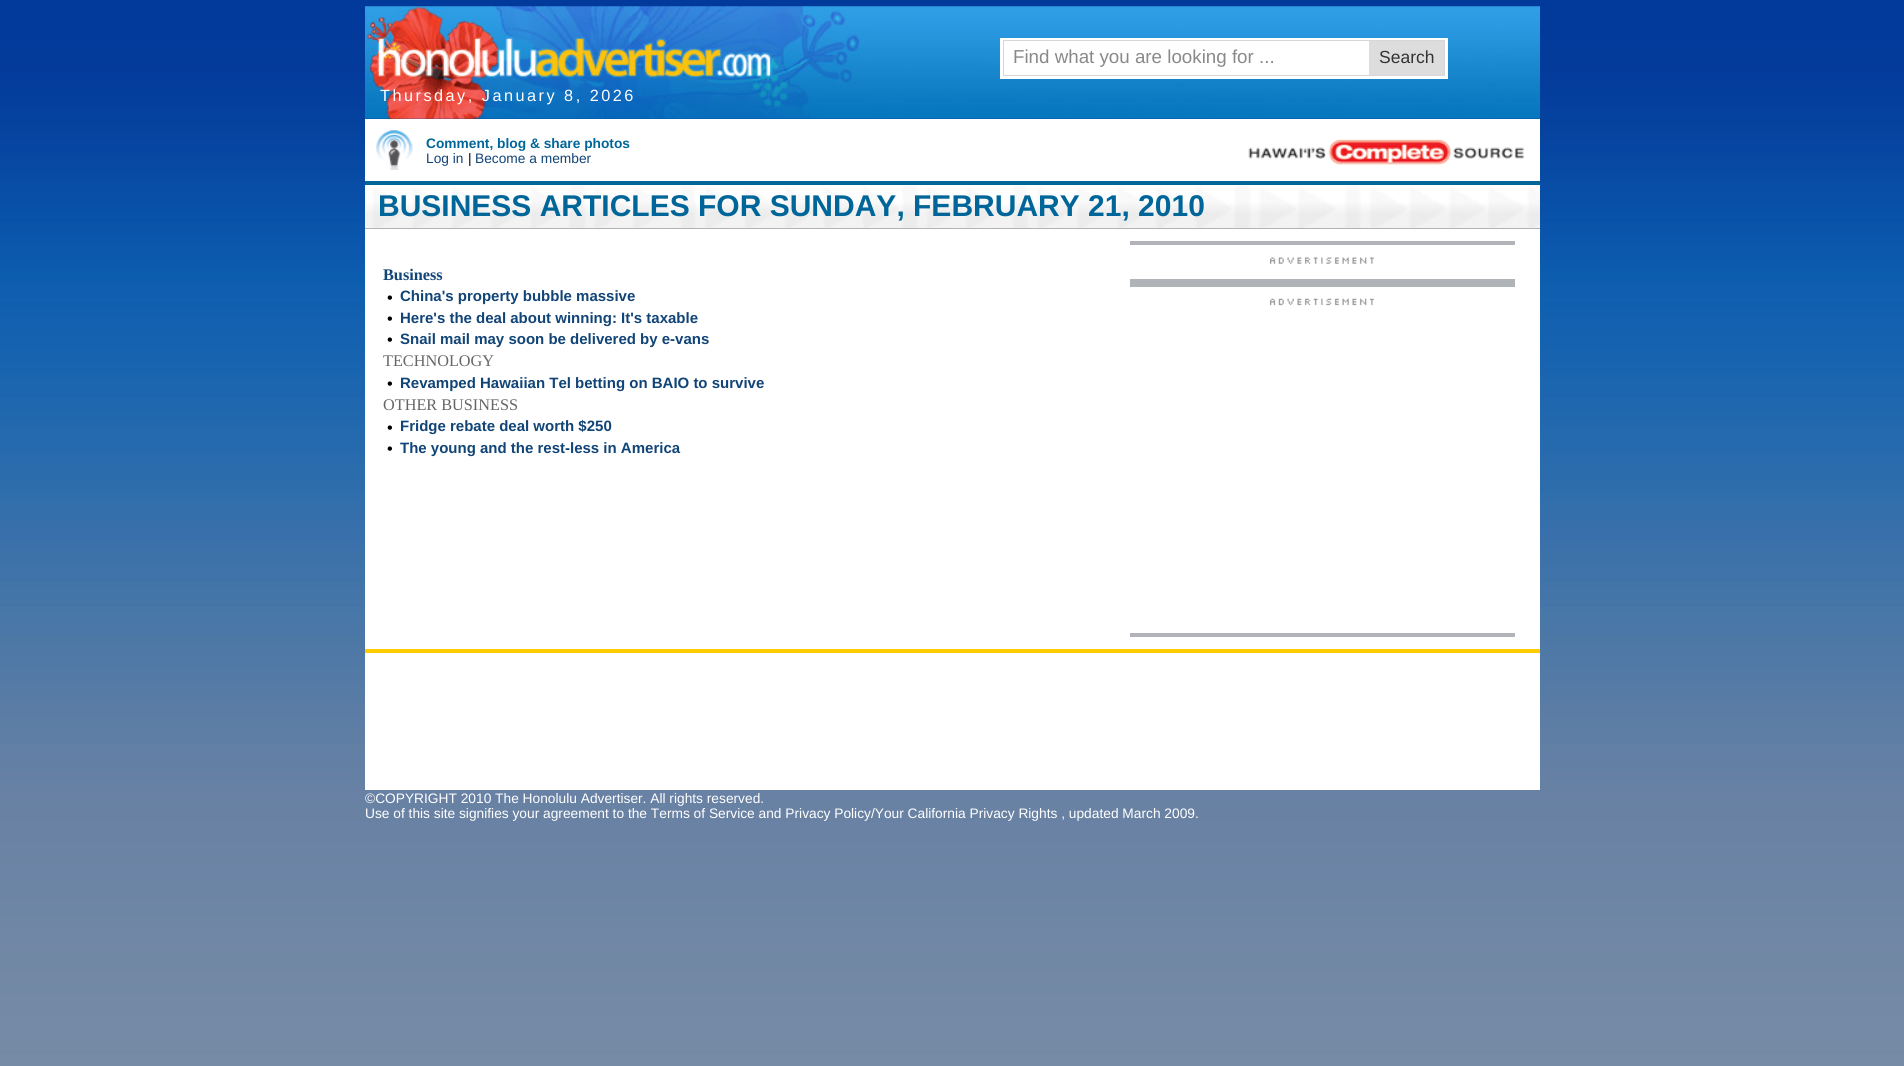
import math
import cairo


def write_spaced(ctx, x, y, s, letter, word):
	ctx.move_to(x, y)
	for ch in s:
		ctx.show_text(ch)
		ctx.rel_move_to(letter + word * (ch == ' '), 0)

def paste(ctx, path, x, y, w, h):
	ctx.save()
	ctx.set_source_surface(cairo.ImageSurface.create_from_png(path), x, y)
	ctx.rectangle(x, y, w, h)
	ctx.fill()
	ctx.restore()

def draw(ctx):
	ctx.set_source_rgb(1, 1, 1)
	ctx.paint()
	paste(ctx, 'media/1.png', 0, 0, 1904, 1066)
	paste(ctx, 'media/2.png', 365, 6, 1175, 113)
	paste(ctx, 'media/3.png', 377, 37, 395, 41)
	ctx.set_source_rgb(1, 1, 1)
	ctx.rectangle(1000, 38, 448, 41)
	ctx.fill()
	ctx.rectangle(1003.5, 40.5, 441, 35)
	ctx.set_source_rgb(0.843, 0.843, 0.843)
	ctx.set_line_width(1)
	ctx.stroke()
	ctx.select_font_face('Liberation Sans')
	ctx.set_font_size(18.75)
	ctx.set_source_rgb(0.537, 0.537, 0.537)
	ctx.move_to(1013, 63)
	ctx.show_text('Find what you are looking for ...')
	ctx.set_source_rgb(0.867, 0.867, 0.867)
	ctx.rectangle(1369, 41, 75, 34)
	ctx.fill()
	ctx.set_font_size(17.5)
	ctx.set_source_rgb(0.2, 0.2, 0.2)
	ctx.move_to(1379, 63)
	ctx.show_text('Search')
	ctx.set_font_size(16.25)
	ctx.set_source_rgb(1, 1, 1)
	write_spaced(ctx, 380, 101, 'Thursday, January 8, 2026', 2.5, 0)
	ctx.rectangle(365, 119, 1175, 62)
	ctx.fill()
	ctx.set_source_rgb(0, 0.4, 0.6)
	ctx.rectangle(365, 181, 1175, 4)
	ctx.fill()
	paste(ctx, 'media/4.png', 376, 130, 37, 40)
	ctx.select_font_face('Liberation Sans', cairo.FONT_SLANT_NORMAL, cairo.FONT_WEIGHT_BOLD)
	ctx.set_font_size(13.75)
	ctx.move_to(426, 148)
	ctx.show_text('Comment, blog & share photos')
	ctx.select_font_face('Liberation Sans')
	ctx.set_source_rgb(0.067, 0.267, 0.467)
	ctx.move_to(426, 163)
	ctx.show_text('Log in')
	ctx.set_source_rgb(0, 0, 0)
	ctx.move_to(468, 163)
	ctx.show_text('|')
	ctx.set_source_rgb(0.067, 0.267, 0.467)
	ctx.move_to(475, 163)
	ctx.show_text('Become a member')
	paste(ctx, 'media/5.png', 1248, 139, 276, 26)
	paste(ctx, 'media/6.png', 365, 185, 1175, 43)
	ctx.set_source_rgb(0.69, 0.706, 0.725)
	ctx.rectangle(365, 228, 1175, 1)
	ctx.fill()
	ctx.select_font_face('Liberation Sans', cairo.FONT_SLANT_NORMAL, cairo.FONT_WEIGHT_BOLD)
	ctx.set_font_size(30)
	ctx.set_source_rgb(0, 0.4, 0.6)
	ctx.move_to(378, 216)
	ctx.show_text('BUSINESS ARTICLES FOR SUNDAY, FEBRUARY 21, 2010')
	ctx.set_source_rgb(1, 1, 1)
	ctx.rectangle(365, 229, 1175, 420)
	ctx.fill()
	ctx.set_source_rgb(1, 0.8, 0)
	ctx.rectangle(365, 649, 1175, 4)
	ctx.fill()
	ctx.select_font_face('Liberation Serif', cairo.FONT_SLANT_NORMAL, cairo.FONT_WEIGHT_BOLD)
	ctx.set_font_size(16.25)
	ctx.set_source_rgb(0.067, 0.267, 0.467)
	ctx.move_to(383, 280)
	ctx.show_text('Business')
	ctx.select_font_face('Liberation Sans')
	ctx.set_source_rgb(0, 0, 0)
	ctx.move_to(387, 303)
	ctx.show_text('•')
	ctx.select_font_face('Liberation Sans', cairo.FONT_SLANT_NORMAL, cairo.FONT_WEIGHT_BOLD)
	ctx.set_font_size(15)
	ctx.set_source_rgb(0.067, 0.267, 0.467)
	ctx.move_to(400, 301)
	ctx.show_text('China\'s property bubble massive')
	ctx.select_font_face('Liberation Sans')
	ctx.set_font_size(16.25)
	ctx.set_source_rgb(0, 0, 0)
	ctx.move_to(387, 324)
	ctx.show_text('•')
	ctx.select_font_face('Liberation Sans', cairo.FONT_SLANT_NORMAL, cairo.FONT_WEIGHT_BOLD)
	ctx.set_font_size(15)
	ctx.set_source_rgb(0.067, 0.267, 0.467)
	ctx.move_to(400, 323)
	ctx.show_text('Here\'s the deal about winning: It\'s taxable')
	ctx.select_font_face('Liberation Sans')
	ctx.set_font_size(16.25)
	ctx.set_source_rgb(0, 0, 0)
	ctx.move_to(387, 345)
	ctx.show_text('•')
	ctx.select_font_face('Liberation Sans', cairo.FONT_SLANT_NORMAL, cairo.FONT_WEIGHT_BOLD)
	ctx.set_font_size(15)
	ctx.set_source_rgb(0.067, 0.267, 0.467)
	ctx.move_to(400, 344)
	ctx.show_text('Snail mail may soon be delivered by e-vans')
	ctx.select_font_face('Liberation Serif')
	ctx.set_font_size(16.25)
	ctx.set_source_rgb(0.4, 0.4, 0.4)
	ctx.move_to(383, 366)
	ctx.show_text('TECHNOLOGY')
	ctx.select_font_face('Liberation Sans')
	ctx.set_source_rgb(0, 0, 0)
	ctx.move_to(387, 389)
	ctx.show_text('•')
	ctx.select_font_face('Liberation Sans', cairo.FONT_SLANT_NORMAL, cairo.FONT_WEIGHT_BOLD)
	ctx.set_font_size(15)
	ctx.set_source_rgb(0.067, 0.267, 0.467)
	ctx.move_to(400, 388)
	ctx.show_text('Revamped Hawaiian Tel betting on BAIO to survive')
	ctx.select_font_face('Liberation Serif')
	ctx.set_font_size(16.25)
	ctx.set_source_rgb(0.4, 0.4, 0.4)
	ctx.move_to(383, 410)
	ctx.show_text('OTHER BUSINESS')
	ctx.select_font_face('Liberation Sans')
	ctx.set_source_rgb(0, 0, 0)
	ctx.move_to(387, 433)
	ctx.show_text('•')
	ctx.select_font_face('Liberation Sans', cairo.FONT_SLANT_NORMAL, cairo.FONT_WEIGHT_BOLD)
	ctx.set_font_size(15)
	ctx.set_source_rgb(0.067, 0.267, 0.467)
	ctx.move_to(400, 431)
	ctx.show_text('Fridge rebate deal worth $250')
	ctx.select_font_face('Liberation Sans')
	ctx.set_font_size(16.25)
	ctx.set_source_rgb(0, 0, 0)
	ctx.move_to(387, 454)
	ctx.show_text('•')
	ctx.select_font_face('Liberation Sans', cairo.FONT_SLANT_NORMAL, cairo.FONT_WEIGHT_BOLD)
	ctx.set_font_size(15)
	ctx.set_source_rgb(0.067, 0.267, 0.467)
	ctx.move_to(400, 453)
	ctx.show_text('The young and the rest-less in America')
	ctx.set_source_rgb(0.69, 0.706, 0.725)
	ctx.rectangle(1130, 241, 385, 4)
	ctx.fill()
	ctx.rectangle(1130, 279, 385, 8)
	ctx.fill()
	paste(ctx, 'media/7.png', 1270, 257, 104, 7)
	ctx.rectangle(1130, 633, 385, 4)
	ctx.fill()
	paste(ctx, 'media/8.png', 1270, 298, 104, 8)
	ctx.set_source_rgb(1, 1, 1)
	ctx.rectangle(365, 653, 1175, 137)
	ctx.fill()
	ctx.select_font_face('Liberation Sans')
	ctx.set_font_size(13.75)
	ctx.move_to(365, 803)
	ctx.show_text('©COPYRIGHT 2010 The Honolulu Advertiser. All rights reserved.')
	ctx.move_to(365, 818)
	ctx.show_text('Use of this site signifies your agreement to the Terms of Service and Privacy Policy/Your California Privacy Rights , updated March 2009.')


surface = cairo.ImageSurface(cairo.FORMAT_RGB24, 1904, 1066)
ctx = cairo.Context(surface)
options = cairo.FontOptions()
options.set_hint_metrics(cairo.HINT_METRICS_OFF)
options.set_hint_style(cairo.HINT_STYLE_NONE)
ctx.set_font_options(options)
ctx.set_miter_limit(4)
draw(ctx)
surface.write_to_png('image.png')
